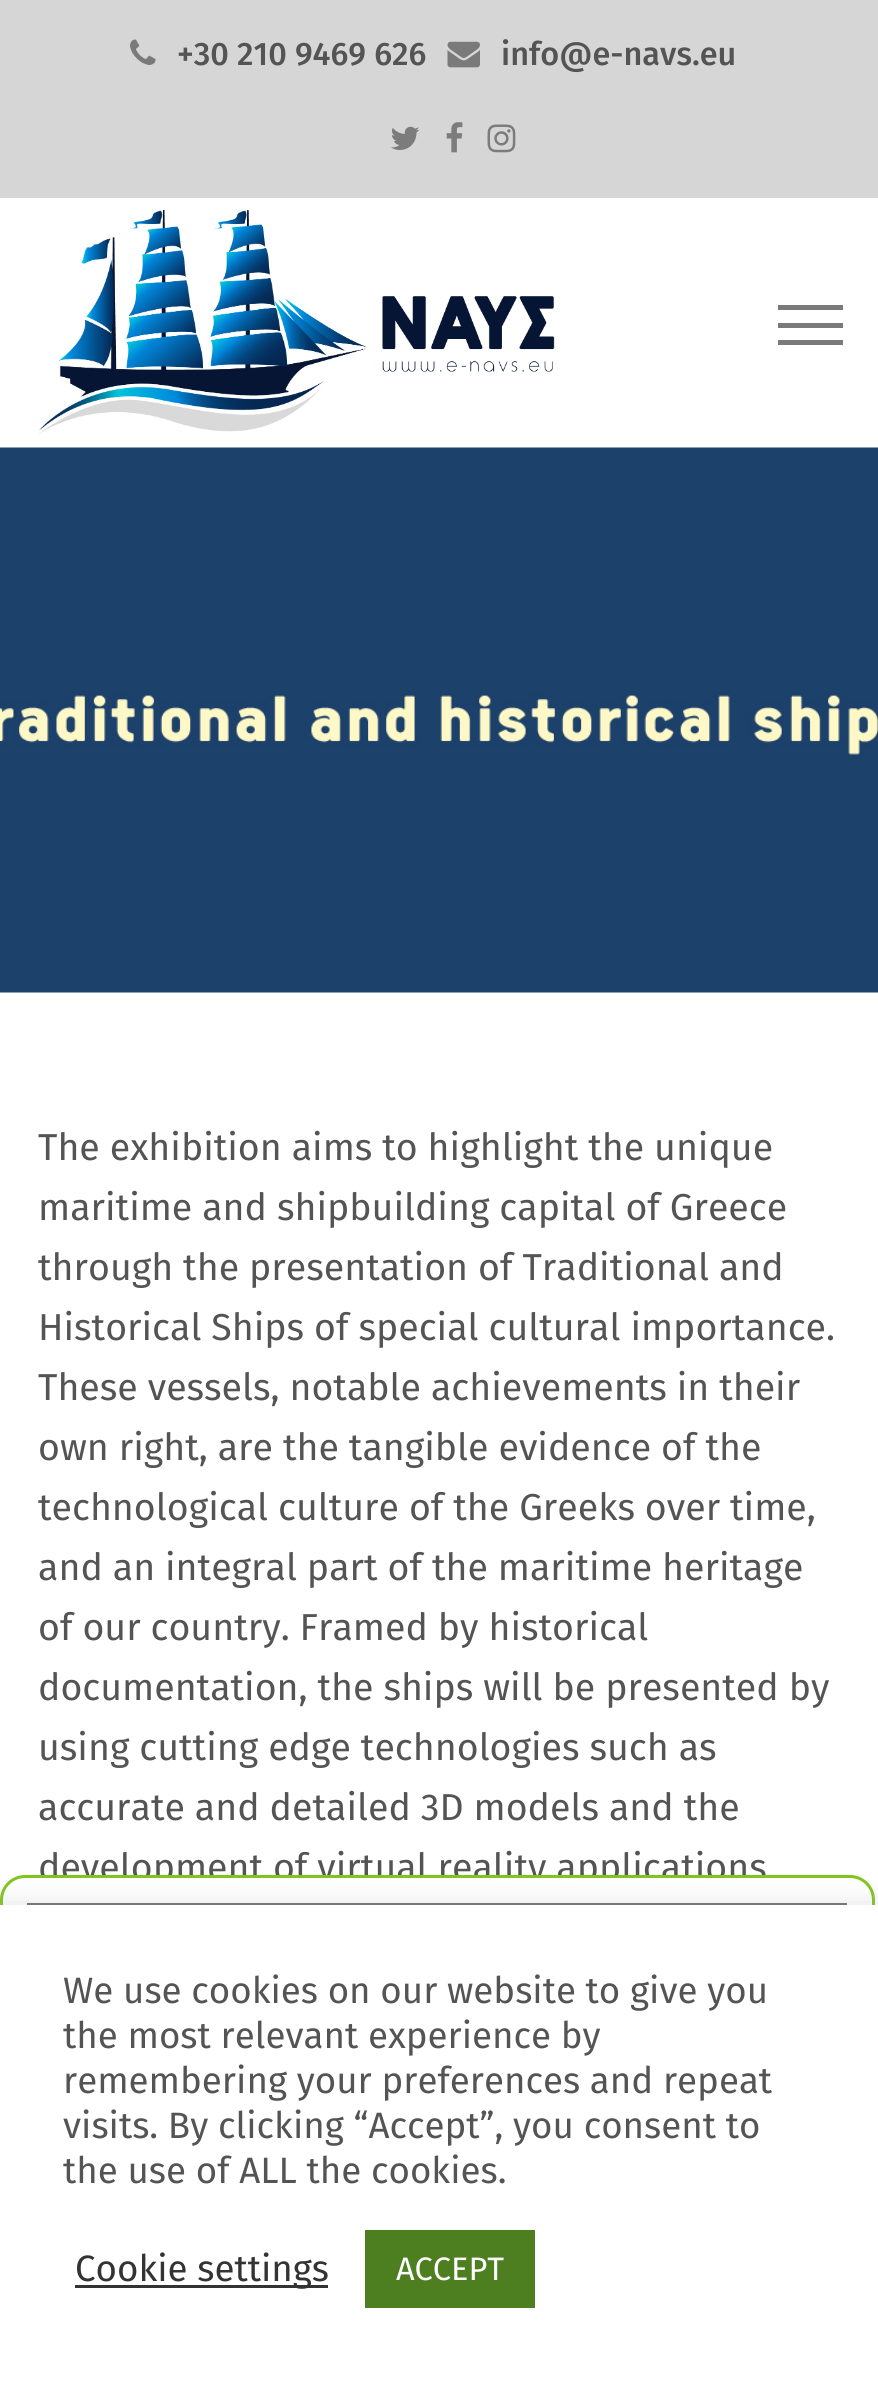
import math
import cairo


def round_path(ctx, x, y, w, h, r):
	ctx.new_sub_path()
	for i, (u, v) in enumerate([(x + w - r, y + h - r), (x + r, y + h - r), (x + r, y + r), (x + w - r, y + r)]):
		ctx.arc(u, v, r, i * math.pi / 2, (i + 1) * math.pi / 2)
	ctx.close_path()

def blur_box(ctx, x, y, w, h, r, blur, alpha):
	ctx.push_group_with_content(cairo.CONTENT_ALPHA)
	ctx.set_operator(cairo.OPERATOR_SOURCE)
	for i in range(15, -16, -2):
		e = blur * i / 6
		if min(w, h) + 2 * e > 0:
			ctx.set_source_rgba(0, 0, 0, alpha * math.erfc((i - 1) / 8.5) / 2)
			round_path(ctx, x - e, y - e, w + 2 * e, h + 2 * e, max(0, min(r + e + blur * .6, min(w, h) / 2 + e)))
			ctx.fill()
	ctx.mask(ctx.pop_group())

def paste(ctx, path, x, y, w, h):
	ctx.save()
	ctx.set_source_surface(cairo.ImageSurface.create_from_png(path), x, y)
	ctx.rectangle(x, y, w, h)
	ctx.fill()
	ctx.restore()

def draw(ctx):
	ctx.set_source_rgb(1, 1, 1)
	ctx.paint()
	ctx.set_source_rgb(0.839, 0.839, 0.839)
	ctx.rectangle(0, 0, 878, 198)
	ctx.fill()
	paste(ctx, 'media/1.png', 130, 39, 26, 26)
	ctx.select_font_face('Fira Sans Medium')
	ctx.set_font_size(32.5)
	ctx.set_source_rgb(0.329, 0.329, 0.329)
	ctx.move_to(177, 65)
	ctx.show_text('+30 210 9469 626')
	paste(ctx, 'media/2.png', 447, 41, 33, 27)
	ctx.move_to(501, 65)
	ctx.show_text('info@e-navs.eu')
	paste(ctx, 'media/3.png', 391, 126, 29, 24)
	paste(ctx, 'media/4.png', 446, 122, 17, 31)
	paste(ctx, 'media/5.png', 487, 124, 29, 29)
	paste(ctx, 'media/6.png', 38, 210, 517, 225)
	ctx.set_source_rgb(0.478, 0.478, 0.478)
	ctx.rectangle(778, 305, 65, 5)
	ctx.rectangle(778, 323, 65, 5)
	ctx.rectangle(778, 340, 65, 5)
	ctx.fill()
	paste(ctx, 'media/7.png', 0, 447, 878, 546)
	ctx.select_font_face('Fira Sans')
	ctx.set_font_size(37.5)
	ctx.set_source_rgb(0.329, 0.329, 0.329)
	for x, y, s in [
		(38, 1160, 'The exhibition aims to highlight the unique'),
		(38, 1220, 'maritime and shipbuilding capital of Greece'),
		(38, 1280, 'through the presentation of Traditional and'),
		(38, 1340, 'Historical Ships of special cultural importance.'),
		(38, 1400, 'These vessels, notable achievements in their'),
		(38, 1460, 'own right, are the tangible evidence of the'),
		(38, 1520, 'technological culture of the Greeks over time,'),
		(38, 1580, 'and an integral part of the maritime heritage'),
		(38, 1640, 'of our country. Framed by historical'),
		(38, 1700, 'documentation, the ships will be presented by'),
		(38, 1760, 'using cutting edge technologies such as'),
		(38, 1820, 'accurate and detailed 3D models and the'),
		(38, 1880, 'development of virtual reality applications'),
	]:
		ctx.move_to(x, y)
		ctx.show_text(s)
	ctx.set_source_rgb(1, 1, 1)
	round_path(ctx, 1.5, 1876.5, 872, 280, 23.5)
	ctx.fill_preserve()
	ctx.set_source_rgb(0.498, 0.769, 0.11)
	ctx.set_line_width(3)
	ctx.stroke()
	paste(ctx, 'media/8.png', 27, 1903, 820, 2)
	ctx.set_source_rgb(0.675, 0.671, 0.671)
	blur_box(ctx, 0, 1903, 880, 477, 0, 12.5, 0.3)
	ctx.set_source_rgb(1, 1, 1)
	ctx.rectangle(0, 1905, 878, 476)
	ctx.fill()
	ctx.set_font_size(36.7)
	ctx.set_source_rgb(0.329, 0.329, 0.329)
	for x, y, s in [
		(63, 2003, 'We use cookies on our website to give you'),
		(63, 2048, 'the most relevant experience by'),
		(63, 2093, 'remembering your preferences and repeat'),
		(63, 2138, 'visits. By clicking “Accept”, you consent to'),
		(63, 2183, 'the use of ALL the cookies.'),
	]:
		ctx.move_to(x, y)
		ctx.show_text(s)
	ctx.set_source_rgb(0.2, 0.2, 0.2)
	ctx.rectangle(75, 2285, 253, 3)
	ctx.fill()
	ctx.move_to(75, 2281)
	ctx.show_text('Cookie settings')
	ctx.set_source_rgb(0.302, 0.498, 0.129)
	ctx.rectangle(365, 2230, 170, 78)
	ctx.fill()
	ctx.set_font_size(32.5)
	ctx.set_source_rgb(1, 1, 1)
	ctx.move_to(396, 2280)
	ctx.show_text('ACCEPT')


surface = cairo.ImageSurface(cairo.FORMAT_RGB24, 878, 2381)
ctx = cairo.Context(surface)
options = cairo.FontOptions()
options.set_hint_metrics(cairo.HINT_METRICS_OFF)
options.set_hint_style(cairo.HINT_STYLE_NONE)
ctx.set_font_options(options)
ctx.set_miter_limit(4)
draw(ctx)
surface.write_to_png('image.png')
